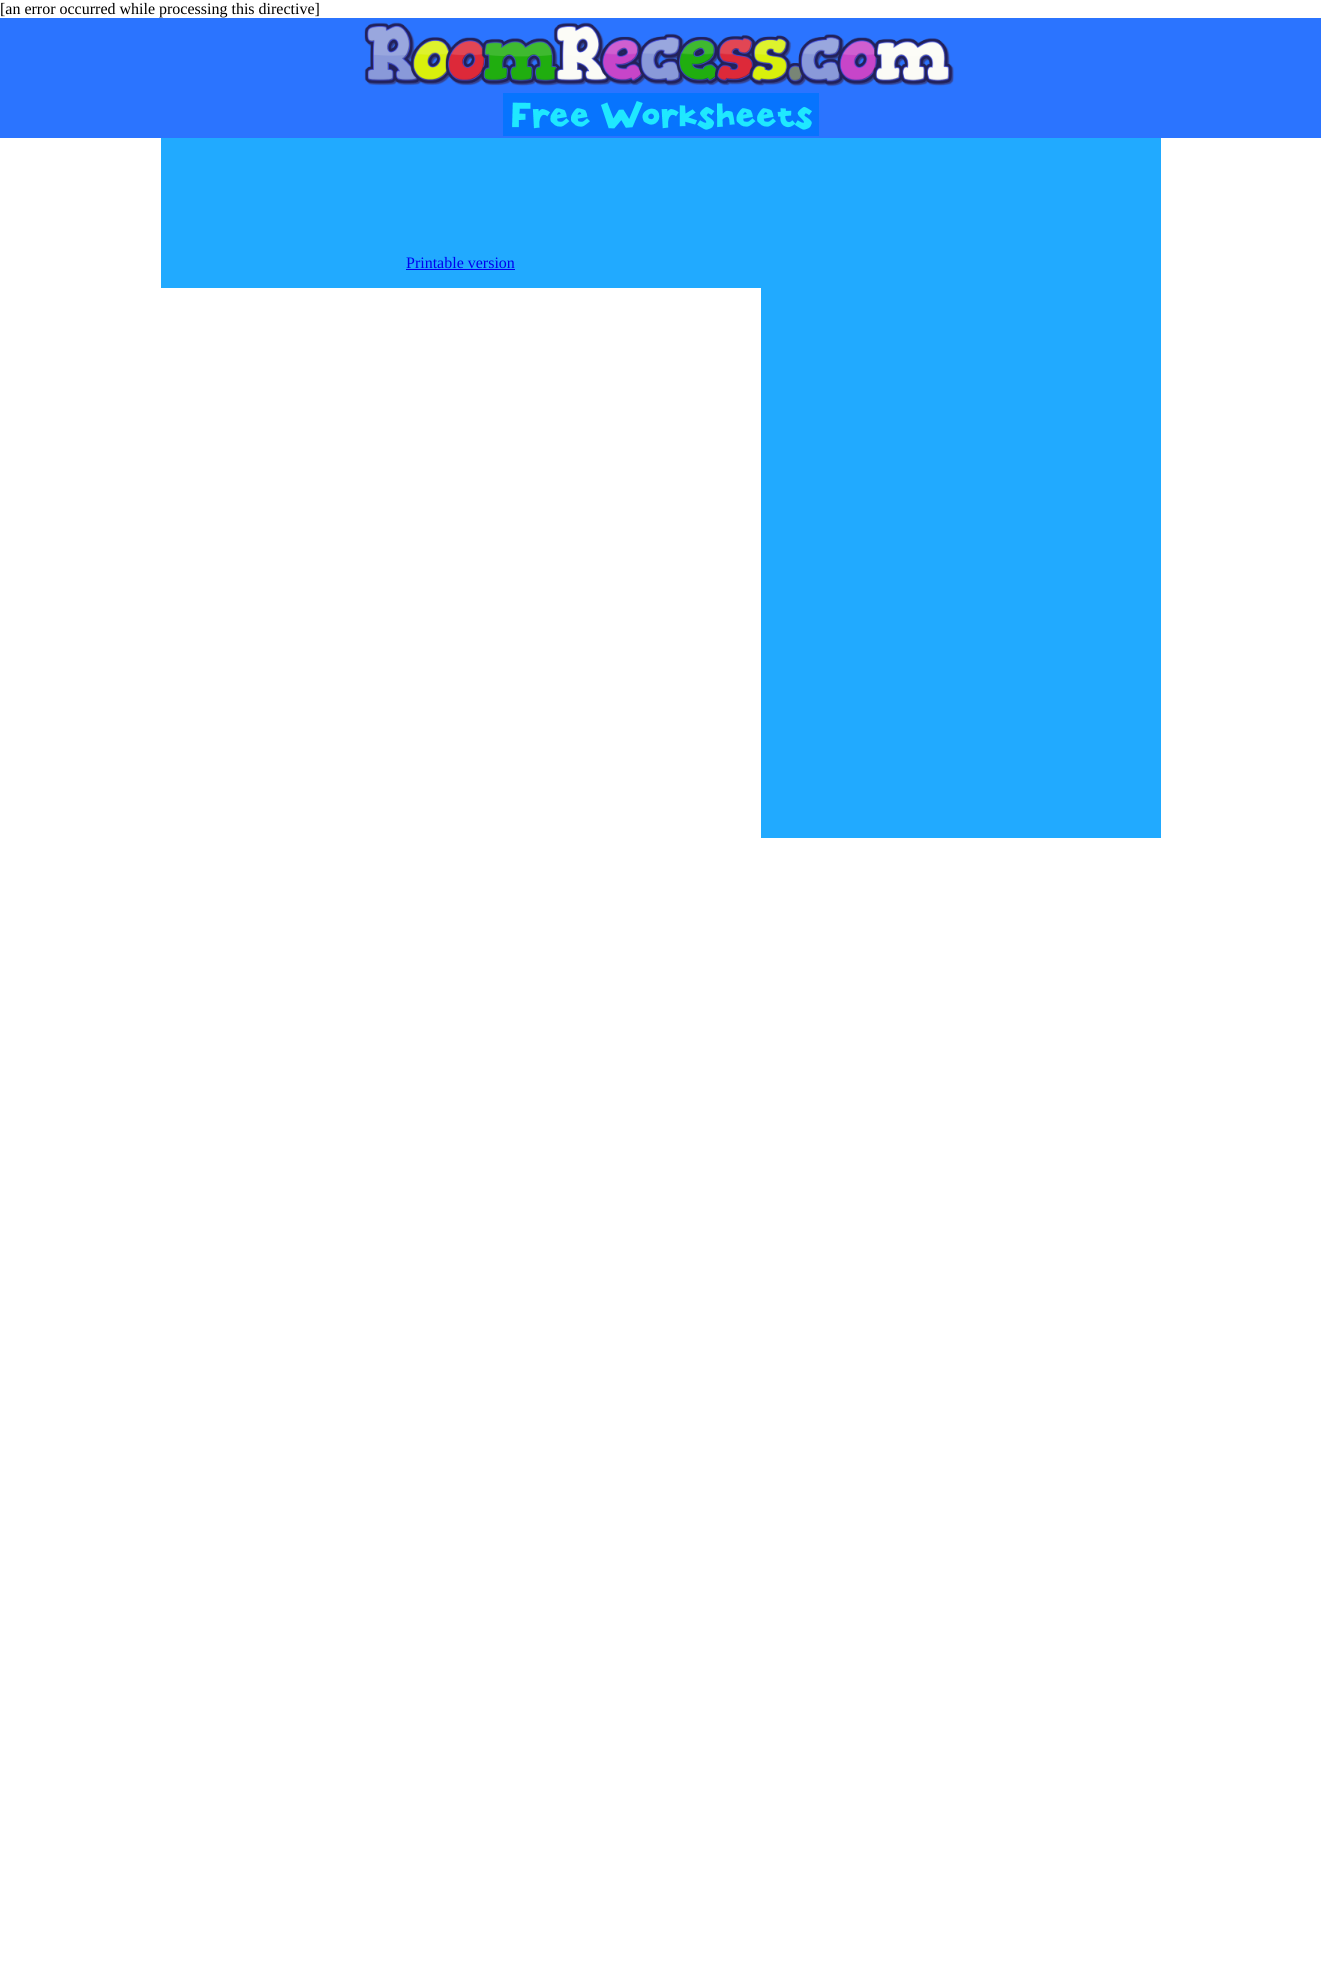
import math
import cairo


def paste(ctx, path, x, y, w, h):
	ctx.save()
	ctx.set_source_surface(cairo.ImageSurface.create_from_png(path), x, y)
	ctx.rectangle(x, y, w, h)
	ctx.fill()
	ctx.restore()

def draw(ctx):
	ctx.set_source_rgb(1, 1, 1)
	ctx.paint()
	ctx.select_font_face('Liberation Serif')
	ctx.set_font_size(16)
	ctx.set_source_rgb(0, 0, 0)
	ctx.move_to(0, 14)
	ctx.show_text('[an error occurred while processing this directive]')
	ctx.set_source_rgb(0.169, 0.455, 1)
	ctx.rectangle(0, 18, 1321, 120)
	ctx.fill()
	paste(ctx, 'media/1.png', 364, 22, 590, 65)
	paste(ctx, 'media/2.png', 503, 93, 316, 43)
	ctx.set_source_rgb(0.129, 0.667, 1)
	ctx.rectangle(161, 138, 1000, 100)
	ctx.fill()
	ctx.rectangle(161, 238, 600, 50)
	ctx.fill()
	ctx.set_source_rgb(0, 0, 0.933)
	ctx.move_to(406, 268)
	ctx.show_text('Printable version')
	ctx.rectangle(406, 269, 109, 1)
	ctx.fill()
	ctx.set_source_rgb(0.129, 0.667, 1)
	ctx.rectangle(761, 238, 400, 600)
	ctx.fill()


surface = cairo.ImageSurface(cairo.FORMAT_RGB24, 1321, 1966)
ctx = cairo.Context(surface)
options = cairo.FontOptions()
options.set_hint_metrics(cairo.HINT_METRICS_OFF)
options.set_hint_style(cairo.HINT_STYLE_NONE)
ctx.set_font_options(options)
ctx.set_miter_limit(4)
draw(ctx)
surface.write_to_png('image.png')
